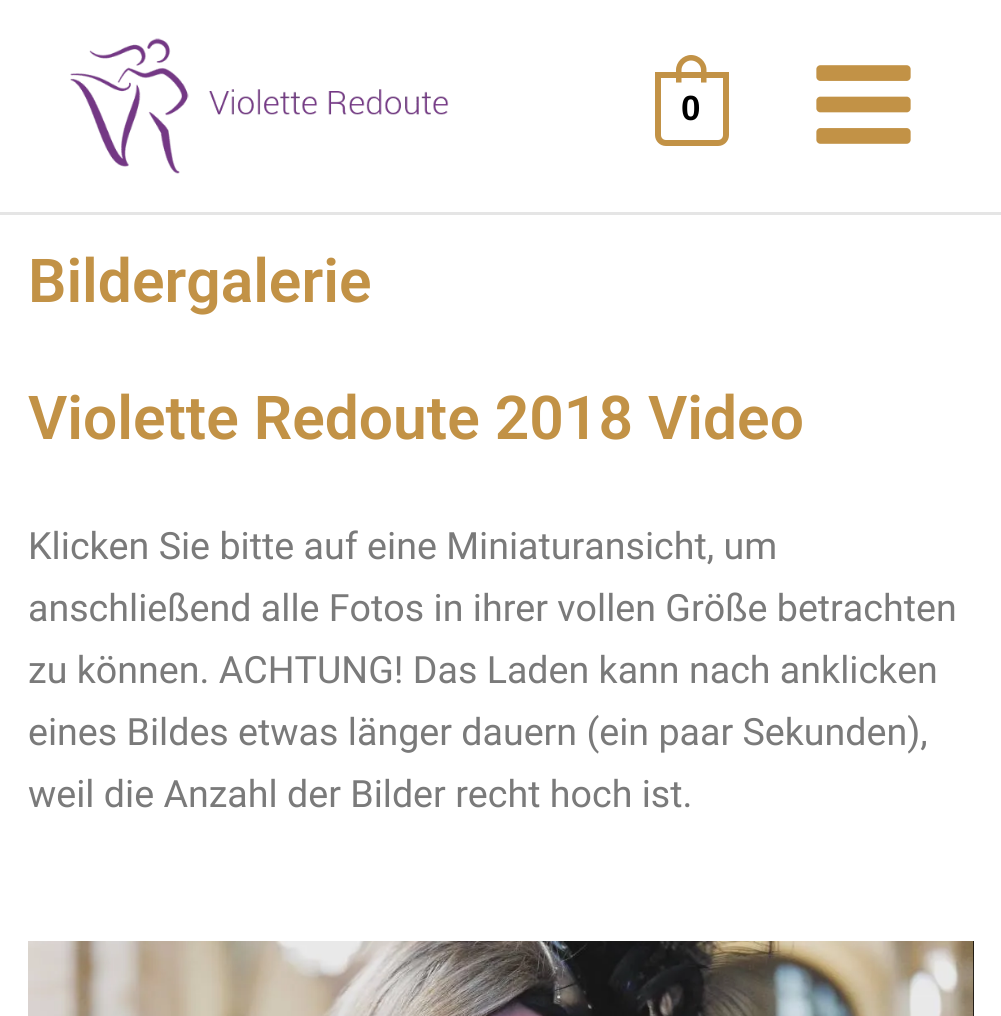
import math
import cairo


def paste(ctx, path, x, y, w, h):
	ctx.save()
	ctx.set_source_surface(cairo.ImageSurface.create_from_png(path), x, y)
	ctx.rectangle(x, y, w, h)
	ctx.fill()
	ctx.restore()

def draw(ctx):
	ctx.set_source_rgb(1, 1, 1)
	ctx.paint()
	ctx.set_source_rgb(0.898, 0.898, 0.898)
	ctx.rectangle(0, 212, 1001, 3)
	ctx.fill()
	paste(ctx, 'media/1.png', 70, 38, 379, 136)
	ctx.new_path()
	ctx.move_to(658, 75)
	ctx.line_to(726, 75)
	ctx.line_to(726, 135)
	ctx.curve_to(726, 139.5, 722.5, 143, 718, 143)
	ctx.line_to(666, 143)
	ctx.curve_to(661.5, 143, 658, 139.5, 658, 135)
	ctx.close_path()
	ctx.set_source_rgb(0.761, 0.573, 0.275)
	ctx.set_line_width(6)
	ctx.stroke()
	ctx.set_fill_rule(cairo.FILL_RULE_EVEN_ODD)
	ctx.new_path()
	ctx.move_to(691, 55)
	ctx.curve_to(699.5, 55, 706.5, 62, 706.5, 70)
	ctx.line_to(706.5, 82.5)
	ctx.line_to(676, 82.5)
	ctx.line_to(676, 70)
	ctx.curve_to(676, 62, 683, 55, 691, 55)
	ctx.close_path()
	ctx.move_to(691, 60.5)
	ctx.curve_to(696.5, 60.5, 701, 65, 701, 70)
	ctx.line_to(701, 82.5)
	ctx.line_to(681.5, 82.5)
	ctx.line_to(681.5, 70)
	ctx.curve_to(681.5, 65, 686, 60.5, 691, 60.5)
	ctx.close_path()
	ctx.fill()
	ctx.select_font_face('Liberation Sans', cairo.FONT_SLANT_NORMAL, cairo.FONT_WEIGHT_BOLD)
	ctx.set_font_size(35)
	ctx.set_source_rgb(0, 0, 0)
	ctx.move_to(681, 120)
	ctx.show_text('0')
	paste(ctx, 'media/2.png', 816, 65, 95, 79)
	ctx.select_font_face('Roboto SemiBold')
	ctx.set_font_size(60.5)
	ctx.set_source_rgb(0.761, 0.573, 0.275)
	ctx.move_to(28, 302)
	ctx.show_text('Bildergalerie')
	ctx.move_to(28, 439)
	ctx.show_text('Violette Redoute 2018 Video')
	ctx.select_font_face('Roboto')
	ctx.set_font_size(37.6)
	ctx.set_source_rgb(0.478, 0.478, 0.478)
	for x, y, s in [
		(28, 559, 'Klicken Sie bitte auf eine Miniaturansicht, um'),
		(28, 621, 'anschließend alle Fotos in ihrer vollen Größe betrachten'),
		(28, 683, 'zu können. ACHTUNG! Das Laden kann nach anklicken'),
		(28, 745, 'eines Bildes etwas länger dauern (ein paar Sekunden),'),
		(28, 807, 'weil die Anzahl der Bilder recht hoch ist.'),
	]:
		ctx.move_to(x, y)
		ctx.show_text(s)
	ctx.set_source_rgb(0, 0, 0)
	ctx.rectangle(973, 941, 1, 75)
	ctx.fill()
	paste(ctx, 'media/3.png', 28, 941, 946, 75)


surface = cairo.ImageSurface(cairo.FORMAT_RGB24, 1001, 1016)
ctx = cairo.Context(surface)
options = cairo.FontOptions()
options.set_hint_metrics(cairo.HINT_METRICS_OFF)
options.set_hint_style(cairo.HINT_STYLE_NONE)
ctx.set_font_options(options)
ctx.set_miter_limit(4)
draw(ctx)
surface.write_to_png('image.png')
